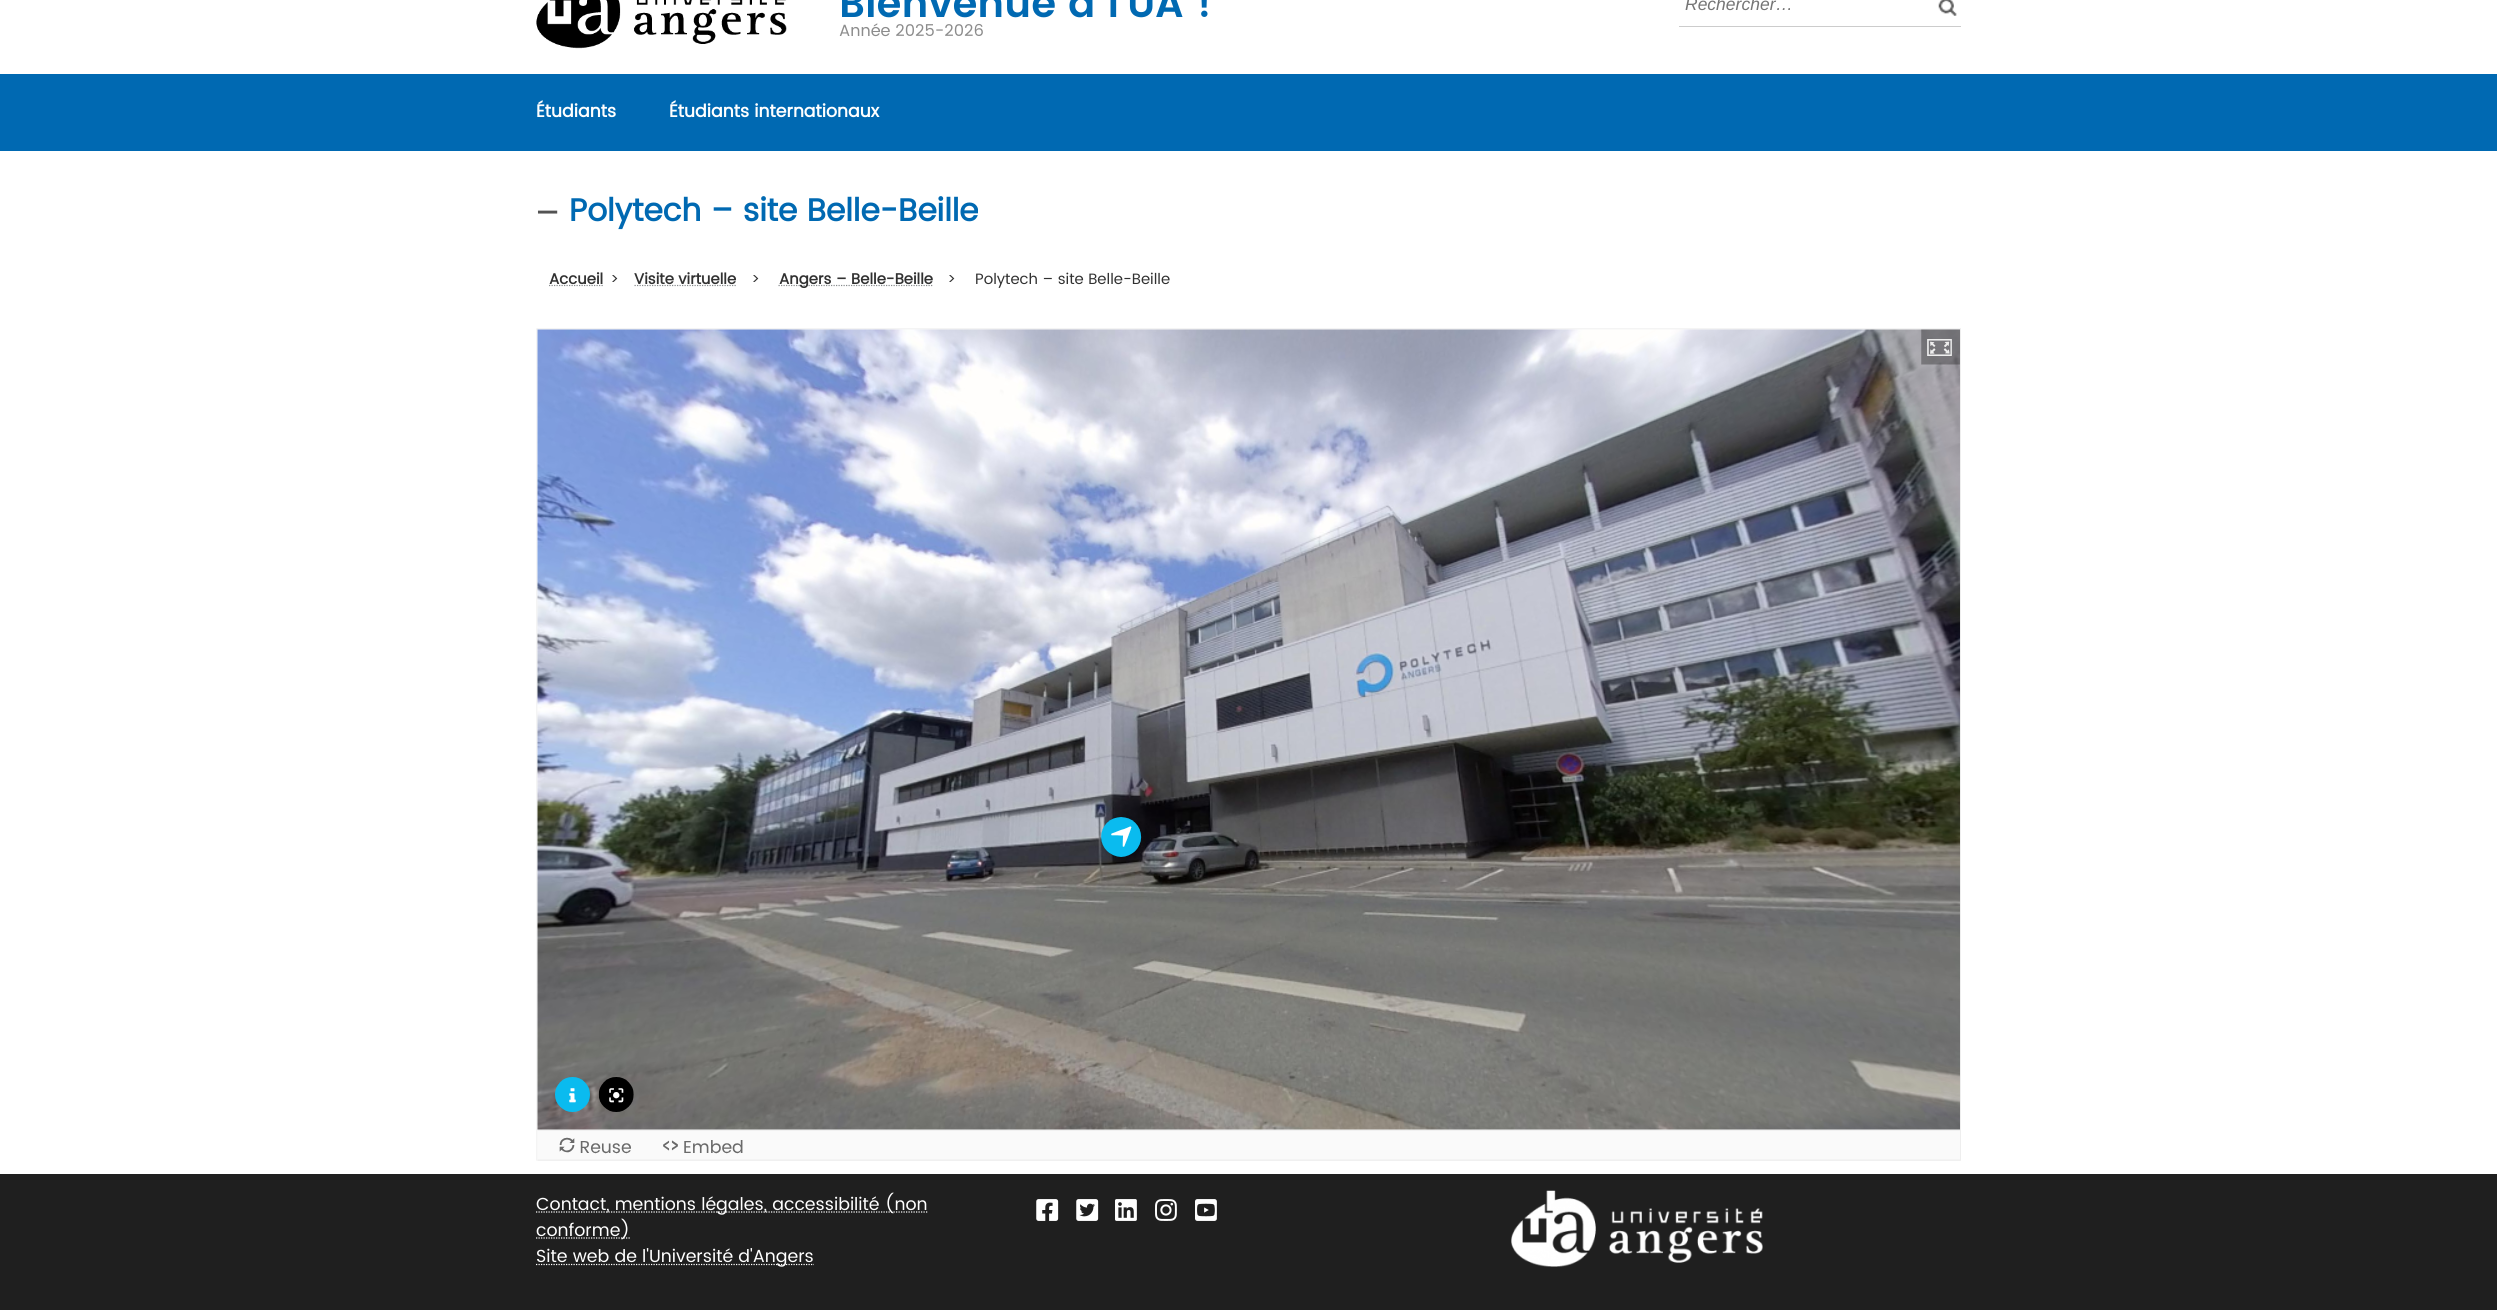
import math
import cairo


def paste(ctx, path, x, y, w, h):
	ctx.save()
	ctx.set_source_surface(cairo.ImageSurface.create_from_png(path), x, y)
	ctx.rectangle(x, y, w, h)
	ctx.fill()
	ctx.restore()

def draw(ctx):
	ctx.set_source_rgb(1, 1, 1)
	ctx.paint()
	ctx.set_source_rgb(0, 0.412, 0.698)
	ctx.rectangle(0, 74, 2497, 77)
	ctx.fill()
	paste(ctx, 'media/1.png', 536, 0, 251, 49)
	ctx.select_font_face('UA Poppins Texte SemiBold')
	ctx.set_font_size(40)
	ctx.move_to(839, 17)
	ctx.show_text('Bienvenue à l\'UA !')
	ctx.select_font_face('UA Poppins Texte')
	ctx.set_font_size(16.25)
	ctx.set_source_rgb(0.549, 0.549, 0.549)
	ctx.move_to(839, 36)
	ctx.show_text('Année 2025-2026')
	ctx.set_source_rgb(0.8, 0.8, 0.8)
	ctx.rectangle(1679, 26, 282, 1)
	ctx.fill()
	ctx.select_font_face('Liberation Sans', cairo.FONT_SLANT_ITALIC)
	ctx.set_font_size(17.5)
	ctx.set_source_rgb(0.459, 0.459, 0.459)
	ctx.move_to(1685, 10)
	ctx.show_text('Rechercher…')
	paste(ctx, 'media/2.png', 1938, 0, 19, 16)
	ctx.select_font_face('UA Poppins Texte', cairo.FONT_SLANT_NORMAL, cairo.FONT_WEIGHT_BOLD)
	ctx.set_source_rgb(1, 1, 1)
	ctx.move_to(536, 117)
	ctx.show_text('Étudiants')
	ctx.move_to(669, 117)
	ctx.show_text('Étudiants internationaux')
	ctx.select_font_face('UA Poppins Texte SemiBold')
	ctx.set_font_size(25)
	ctx.set_source_rgb(0.325, 0.325, 0.325)
	ctx.move_to(536, 221)
	ctx.show_text('—')
	ctx.select_font_face('UA Poppins Texte', cairo.FONT_SLANT_NORMAL, cairo.FONT_WEIGHT_BOLD)
	ctx.set_font_size(31.5)
	ctx.set_source_rgb(0, 0.412, 0.698)
	ctx.move_to(569, 221)
	ctx.show_text('Polytech – site Belle-Beille')
	ctx.new_path()
	ctx.move_to(549, 285.5)
	ctx.line_to(603, 285.5)
	ctx.set_source_rgb(0.529, 0.545, 0.553)
	ctx.set_line_width(1.2)
	ctx.set_dash([1.25, 1.25])
	ctx.stroke()
	ctx.set_font_size(15)
	ctx.set_source_rgb(0.192, 0.192, 0.192)
	ctx.move_to(549, 284)
	ctx.show_text('Accueil')
	ctx.select_font_face('UA Poppins Texte')
	ctx.move_to(610, 284)
	ctx.show_text('>')
	ctx.new_path()
	ctx.move_to(634.5, 285.5)
	ctx.line_to(736.5, 285.5)
	ctx.set_source_rgb(0.529, 0.545, 0.553)
	ctx.stroke()
	ctx.select_font_face('UA Poppins Texte', cairo.FONT_SLANT_NORMAL, cairo.FONT_WEIGHT_BOLD)
	ctx.set_source_rgb(0.192, 0.192, 0.192)
	ctx.move_to(634, 284)
	ctx.show_text('Visite virtuelle')
	ctx.select_font_face('UA Poppins Texte')
	ctx.move_to(751, 284)
	ctx.show_text('>')
	ctx.new_path()
	ctx.move_to(778.5, 285.5)
	ctx.line_to(932.5, 285.5)
	ctx.set_source_rgb(0.529, 0.545, 0.553)
	ctx.stroke()
	ctx.select_font_face('UA Poppins Texte', cairo.FONT_SLANT_NORMAL, cairo.FONT_WEIGHT_BOLD)
	ctx.set_source_rgb(0.192, 0.192, 0.192)
	ctx.move_to(779, 284)
	ctx.show_text('Angers – Belle-Beille')
	ctx.select_font_face('UA Poppins Texte')
	ctx.move_to(947, 284)
	ctx.show_text('>')
	ctx.move_to(975, 284)
	ctx.show_text('Polytech – site Belle-Beille')
	paste(ctx, 'media/3.png', 536, 328, 1425, 833)
	ctx.set_source_rgb(0.122, 0.122, 0.122)
	ctx.rectangle(0, 1174, 2497, 136)
	ctx.fill()
	ctx.new_path()
	ctx.move_to(536, 1212)
	ctx.line_to(928, 1212)
	ctx.set_source_rgb(1, 1, 1)
	ctx.stroke()
	ctx.set_font_size(17.5)
	ctx.move_to(536, 1210)
	ctx.show_text('Contact, mentions légales, accessibilité (non')
	ctx.new_path()
	ctx.move_to(536, 1238)
	ctx.line_to(630.5, 1238)
	ctx.stroke()
	ctx.move_to(536, 1236)
	ctx.show_text('conforme)')
	ctx.new_path()
	ctx.move_to(536, 1264.5)
	ctx.line_to(814, 1264.5)
	ctx.stroke()
	ctx.move_to(536, 1262)
	ctx.show_text('Site web de l\'Université d\'Angers')
	paste(ctx, 'media/4.png', 1036, 1199, 23, 22)
	paste(ctx, 'media/5.png', 1076, 1199, 23, 22)
	paste(ctx, 'media/6.png', 1115, 1199, 22, 22)
	paste(ctx, 'media/7.png', 1155, 1199, 22, 22)
	paste(ctx, 'media/8.png', 1195, 1199, 22, 22)
	paste(ctx, 'media/9.png', 1511, 1190, 252, 77)


surface = cairo.ImageSurface(cairo.FORMAT_RGB24, 2497, 1310)
ctx = cairo.Context(surface)
options = cairo.FontOptions()
options.set_hint_metrics(cairo.HINT_METRICS_OFF)
options.set_hint_style(cairo.HINT_STYLE_NONE)
ctx.set_font_options(options)
ctx.set_miter_limit(4)
draw(ctx)
surface.write_to_png('image.png')
